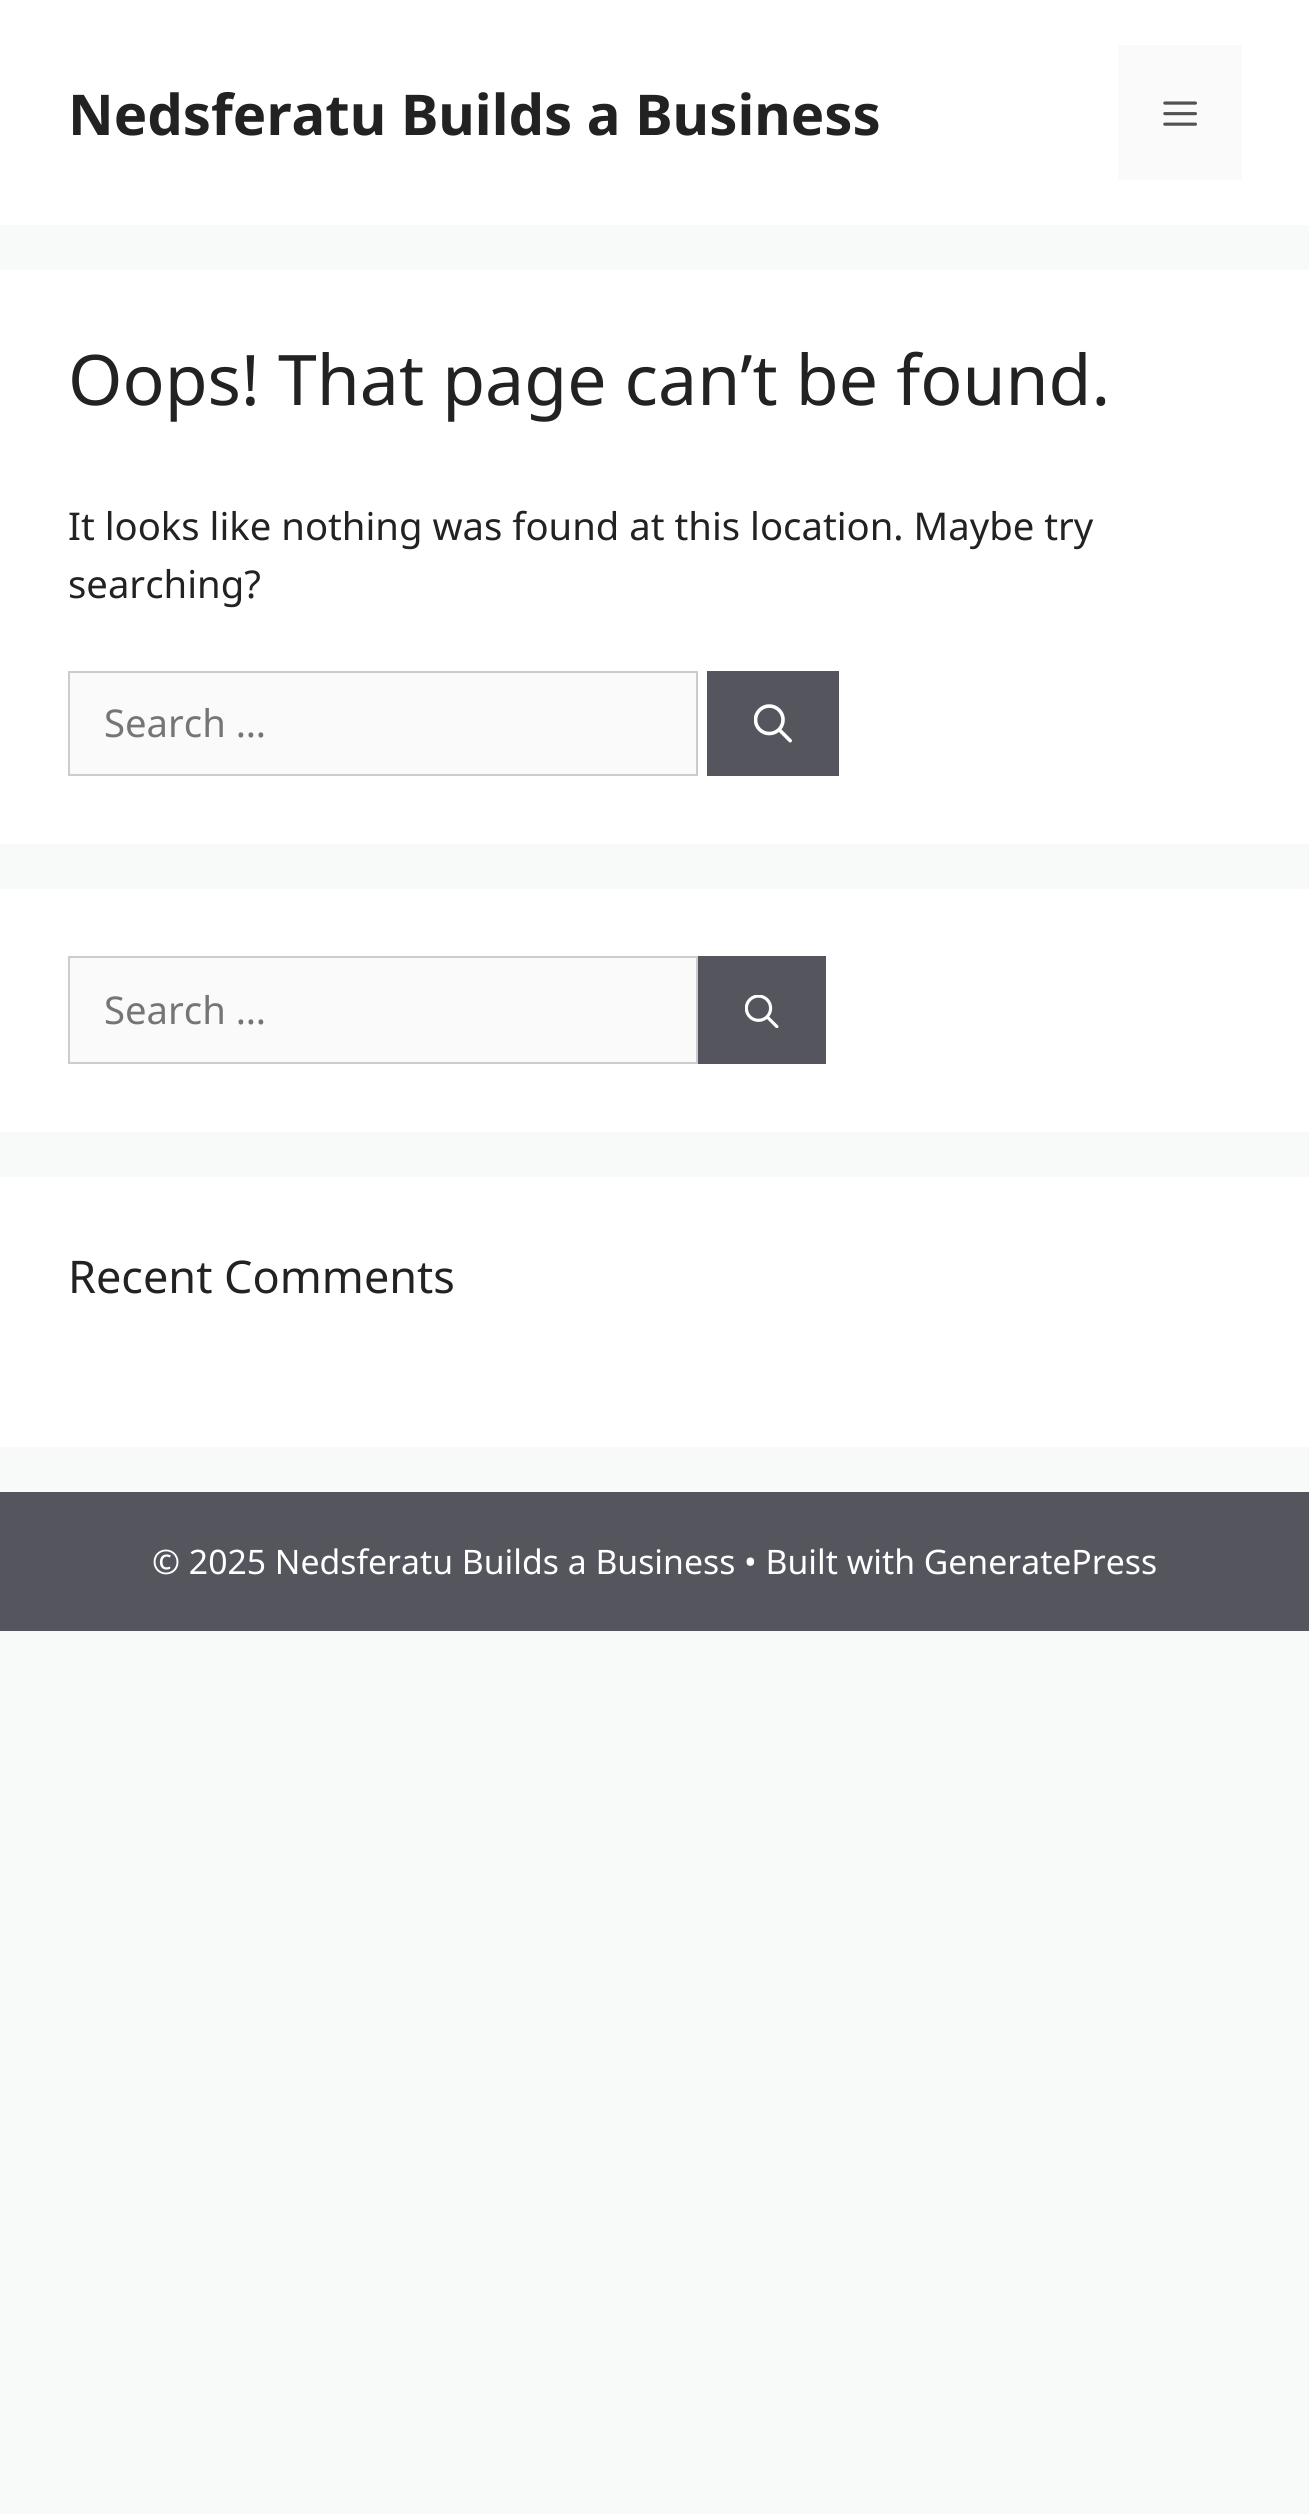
import math
import cairo


def paste(ctx, path, x, y, w, h):
	ctx.save()
	ctx.set_source_surface(cairo.ImageSurface.create_from_png(path), x, y)
	ctx.rectangle(x, y, w, h)
	ctx.fill()
	ctx.restore()

def draw(ctx):
	ctx.set_source_rgb(0.969, 0.973, 0.976)
	ctx.paint()
	ctx.set_source_rgb(1, 1, 1)
	ctx.rectangle(0, 0, 1309, 225)
	ctx.fill()
	ctx.select_font_face('Noto Sans', cairo.FONT_SLANT_NORMAL, cairo.FONT_WEIGHT_BOLD)
	ctx.set_font_size(56.25)
	ctx.set_source_rgb(0.133, 0.133, 0.133)
	ctx.move_to(68, 135)
	ctx.show_text('Nedsferatu Builds a Business')
	ctx.set_source_rgb(0.98, 0.98, 0.98)
	ctx.rectangle(1118, 45, 124, 135)
	ctx.fill()
	paste(ctx, 'media/1.png', 1163, 101, 34, 25)
	ctx.set_source_rgb(1, 1, 1)
	ctx.rectangle(0, 270, 1309, 574)
	ctx.fill()
	ctx.select_font_face('Noto Sans')
	ctx.set_font_size(69.75)
	ctx.set_source_rgb(0.133, 0.133, 0.133)
	ctx.move_to(68, 405)
	ctx.show_text('Oops! That page can’t be found.')
	ctx.set_font_size(38.25)
	ctx.move_to(68, 540)
	ctx.show_text('It looks like nothing was found at this location. Maybe try')
	ctx.move_to(68, 598)
	ctx.show_text('searching?')
	ctx.set_source_rgb(0.98, 0.98, 0.98)
	ctx.rectangle(69, 672, 628, 103)
	ctx.fill_preserve()
	ctx.set_source_rgb(0.8, 0.8, 0.8)
	ctx.stroke()
	ctx.set_source_rgb(0.459, 0.459, 0.459)
	ctx.move_to(104, 737)
	ctx.show_text('Search …')
	ctx.set_source_rgb(0.333, 0.333, 0.369)
	ctx.rectangle(707, 671, 132, 105)
	ctx.fill()
	paste(ctx, 'media/2.png', 754, 704, 38, 39)
	ctx.set_source_rgb(1, 1, 1)
	ctx.rectangle(0, 889, 1309, 243)
	ctx.fill()
	ctx.set_source_rgb(0.98, 0.98, 0.98)
	ctx.rectangle(69, 957, 628, 106)
	ctx.fill_preserve()
	ctx.set_source_rgb(0.8, 0.8, 0.8)
	ctx.stroke()
	ctx.set_source_rgb(0.459, 0.459, 0.459)
	ctx.move_to(104, 1024)
	ctx.show_text('Search …')
	ctx.set_source_rgb(0.333, 0.333, 0.369)
	ctx.rectangle(698, 956, 128, 108)
	ctx.fill()
	paste(ctx, 'media/3.png', 745, 995, 34, 33)
	ctx.set_source_rgb(1, 1, 1)
	ctx.rectangle(0, 1177, 1309, 270)
	ctx.fill()
	ctx.set_font_size(45)
	ctx.set_source_rgb(0.133, 0.133, 0.133)
	ctx.move_to(68, 1293)
	ctx.show_text('Recent Comments')
	ctx.set_source_rgb(0.333, 0.333, 0.369)
	ctx.rectangle(0, 1492, 1309, 139)
	ctx.fill()
	ctx.set_font_size(33.75)
	ctx.set_source_rgb(1, 1, 1)
	ctx.move_to(152, 1574)
	ctx.show_text('© 2025 Nedsferatu Builds a Business • Built with GeneratePress')


surface = cairo.ImageSurface(cairo.FORMAT_RGB24, 1309, 2514)
ctx = cairo.Context(surface)
options = cairo.FontOptions()
options.set_hint_metrics(cairo.HINT_METRICS_OFF)
options.set_hint_style(cairo.HINT_STYLE_NONE)
ctx.set_font_options(options)
ctx.set_miter_limit(4)
draw(ctx)
surface.write_to_png('image.png')
